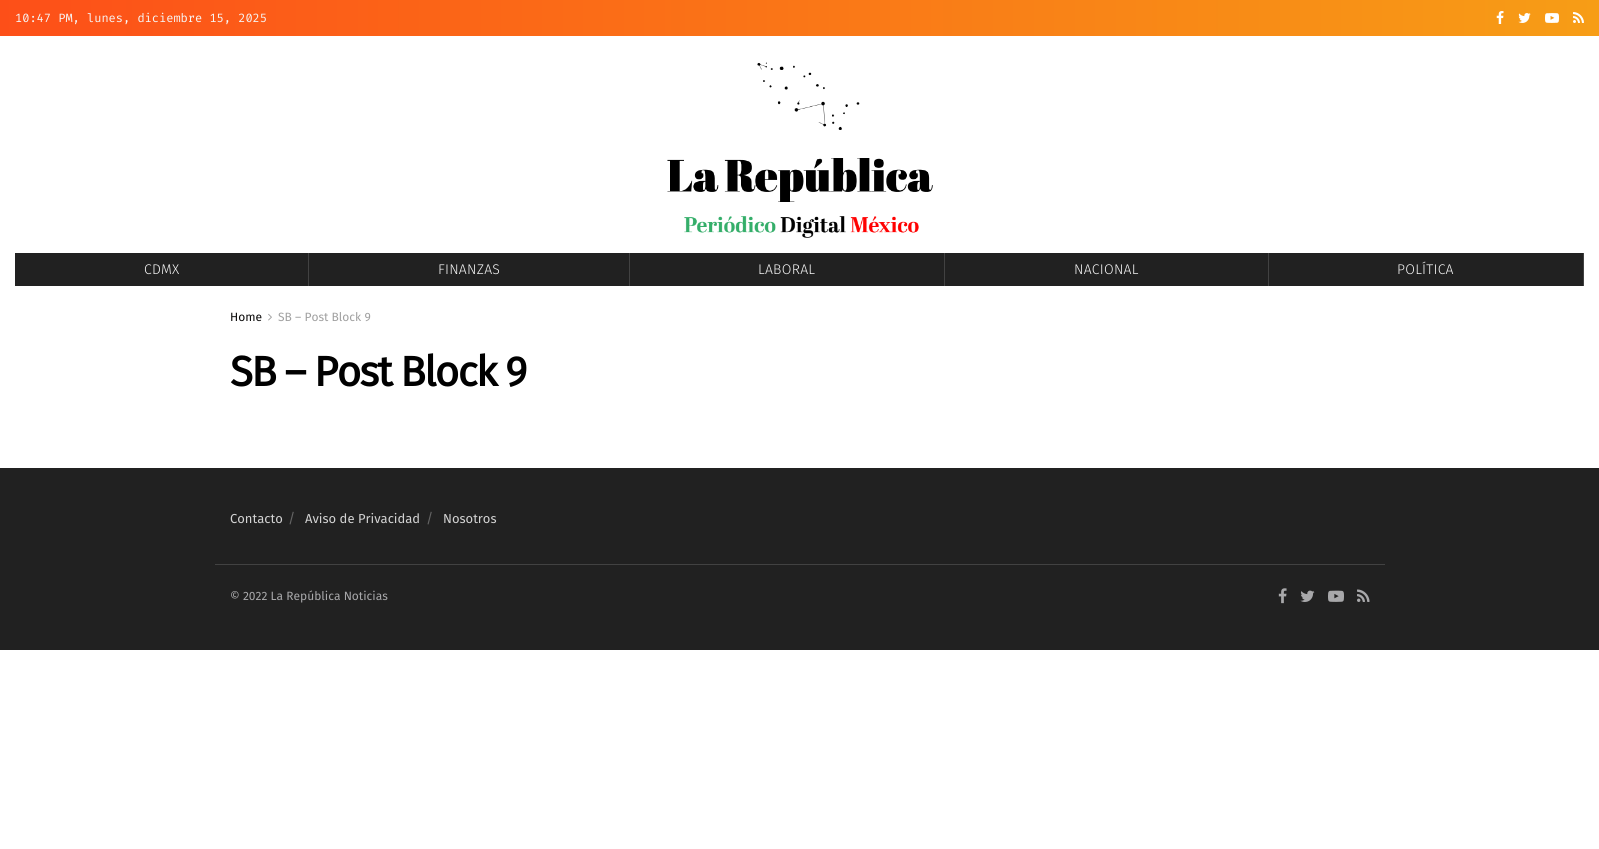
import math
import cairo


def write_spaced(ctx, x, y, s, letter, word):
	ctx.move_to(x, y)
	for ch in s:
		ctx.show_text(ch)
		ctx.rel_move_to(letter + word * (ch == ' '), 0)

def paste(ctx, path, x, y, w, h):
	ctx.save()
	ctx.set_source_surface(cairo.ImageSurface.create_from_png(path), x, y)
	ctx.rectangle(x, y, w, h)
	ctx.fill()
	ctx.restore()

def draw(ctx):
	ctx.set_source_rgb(1, 1, 1)
	ctx.paint()
	gradient = cairo.LinearGradient(0, 18, 1599, 18)
	gradient.add_color_stop_rgba(0, 0.992, 0.31, 0.094, 1)
	gradient.add_color_stop_rgba(1, 0.969, 0.616, 0.086, 1)
	ctx.set_source(gradient)
	ctx.rectangle(0, 0, 1599, 36)
	ctx.fill()
	ctx.select_font_face('Fira Code Light')
	ctx.set_font_size(12)
	ctx.set_source_rgb(0.961, 0.961, 0.961)
	ctx.move_to(15, 22)
	ctx.show_text('10:47 PM, lunes, diciembre 15, 2025')
	paste(ctx, 'media/1.png', 1496, 11, 8, 13)
	paste(ctx, 'media/2.png', 1518, 13, 13, 10)
	paste(ctx, 'media/3.png', 1545, 13, 14, 10)
	paste(ctx, 'media/4.png', 1573, 12, 11, 11)
	paste(ctx, 'media/5.png', 667, 62, 266, 176)
	ctx.set_source_rgb(0.129, 0.129, 0.129)
	ctx.rectangle(15, 253, 1568, 33)
	ctx.fill()
	ctx.set_source_rgb(0.259, 0.259, 0.259)
	ctx.rectangle(1583, 253, 1, 33)
	ctx.rectangle(308, 253, 1, 33)
	ctx.fill()
	ctx.select_font_face('Fira Sans Light')
	ctx.set_font_size(14)
	ctx.set_source_rgb(0.961, 0.961, 0.961)
	write_spaced(ctx, 144, 274, 'CDMX', 0.25, 0)
	ctx.set_source_rgb(0.259, 0.259, 0.259)
	ctx.rectangle(629, 253, 1, 33)
	ctx.fill()
	ctx.set_source_rgb(0.961, 0.961, 0.961)
	write_spaced(ctx, 438, 274, 'FINANZAS', 0.25, 0)
	ctx.set_source_rgb(0.259, 0.259, 0.259)
	ctx.rectangle(944, 253, 1, 33)
	ctx.fill()
	ctx.set_source_rgb(0.961, 0.961, 0.961)
	write_spaced(ctx, 758, 274, 'LABORAL', 0.25, 0)
	ctx.set_source_rgb(0.259, 0.259, 0.259)
	ctx.rectangle(1268, 253, 1, 33)
	ctx.fill()
	ctx.set_source_rgb(0.961, 0.961, 0.961)
	write_spaced(ctx, 1074, 274, 'NACIONAL', 0.25, 0)
	write_spaced(ctx, 1397, 274, 'POLÍTICA', 0.25, 0)
	ctx.select_font_face('Fira Sans')
	ctx.set_font_size(12)
	ctx.set_source_rgb(0.039, 0.035, 0.035)
	ctx.move_to(230, 321)
	ctx.show_text('Home')
	paste(ctx, 'media/6.png', 268, 313, 4, 8)
	ctx.set_source_rgb(0.627, 0.627, 0.627)
	ctx.move_to(278, 321)
	ctx.show_text('SB – Post Block 9')
	ctx.select_font_face('Fira Sans', cairo.FONT_SLANT_NORMAL, cairo.FONT_WEIGHT_BOLD)
	ctx.set_font_size(42)
	ctx.set_source_rgb(0, 0, 0)
	write_spaced(ctx, 230, 386, 'SB – Post Block 9', -1.7, 0)
	ctx.set_source_rgb(0.129, 0.129, 0.129)
	ctx.rectangle(0, 468, 1599, 182)
	ctx.fill()
	ctx.select_font_face('Fira Sans')
	ctx.set_font_size(13)
	ctx.set_source_rgb(0.827, 0.827, 0.827)
	ctx.move_to(230, 523)
	ctx.show_text('Contacto')
	ctx.set_font_size(14)
	ctx.set_source_rgb(0.392, 0.392, 0.392)
	ctx.move_to(288, 523)
	ctx.show_text('/')
	ctx.set_font_size(13)
	ctx.set_source_rgb(0.827, 0.827, 0.827)
	ctx.move_to(305, 523)
	ctx.show_text('Aviso de Privacidad')
	ctx.set_font_size(14)
	ctx.set_source_rgb(0.392, 0.392, 0.392)
	ctx.move_to(426, 523)
	ctx.show_text('/')
	ctx.set_font_size(13)
	ctx.set_source_rgb(0.827, 0.827, 0.827)
	ctx.move_to(443, 523)
	ctx.show_text('Nosotros')
	ctx.set_source_rgb(0.259, 0.259, 0.259)
	ctx.rectangle(215, 564, 1170, 1)
	ctx.fill()
	ctx.set_font_size(12)
	ctx.set_source_rgb(0.659, 0.659, 0.667)
	ctx.move_to(230, 600)
	ctx.show_text('© 2022 La República Noticias')
	paste(ctx, 'media/7.png', 1278, 588, 9, 16)
	paste(ctx, 'media/8.png', 1300, 590, 15, 12)
	paste(ctx, 'media/9.png', 1328, 590, 16, 12)
	paste(ctx, 'media/10.png', 1357, 589, 13, 13)


surface = cairo.ImageSurface(cairo.FORMAT_RGB24, 1599, 849)
ctx = cairo.Context(surface)
options = cairo.FontOptions()
options.set_hint_metrics(cairo.HINT_METRICS_OFF)
options.set_hint_style(cairo.HINT_STYLE_NONE)
ctx.set_font_options(options)
ctx.set_miter_limit(4)
draw(ctx)
surface.write_to_png('image.png')
